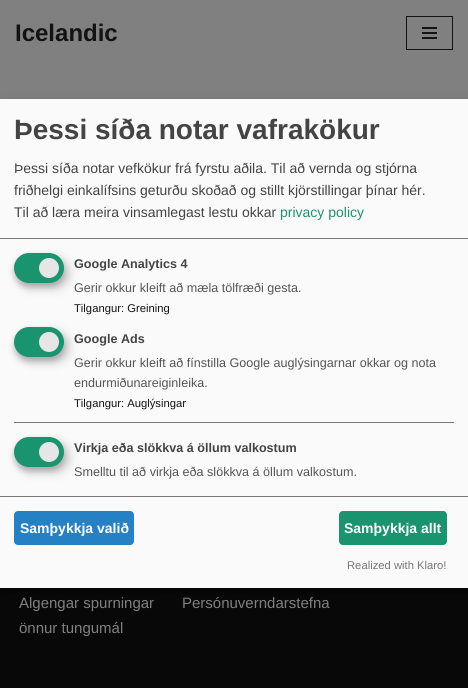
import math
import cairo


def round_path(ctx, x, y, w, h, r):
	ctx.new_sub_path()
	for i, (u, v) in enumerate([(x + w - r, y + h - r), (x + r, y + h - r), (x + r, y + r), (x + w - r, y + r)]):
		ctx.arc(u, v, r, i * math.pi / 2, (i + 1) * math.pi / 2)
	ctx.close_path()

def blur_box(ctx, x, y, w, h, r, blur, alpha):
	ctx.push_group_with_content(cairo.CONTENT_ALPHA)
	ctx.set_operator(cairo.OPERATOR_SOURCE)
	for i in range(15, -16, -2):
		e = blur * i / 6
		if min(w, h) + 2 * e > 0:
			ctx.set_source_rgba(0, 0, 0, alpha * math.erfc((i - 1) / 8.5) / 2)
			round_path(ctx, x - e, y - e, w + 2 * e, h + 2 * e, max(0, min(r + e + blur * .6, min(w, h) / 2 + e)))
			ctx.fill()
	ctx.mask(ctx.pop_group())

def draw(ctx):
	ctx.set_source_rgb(0.502, 0.502, 0.502)
	ctx.paint()
	ctx.select_font_face('Liberation Sans', cairo.FONT_SLANT_NORMAL, cairo.FONT_WEIGHT_BOLD)
	ctx.set_font_size(24)
	ctx.set_source_rgb(0.078, 0.075, 0.075)
	ctx.move_to(15, 41)
	ctx.show_text('Icelandic')
	ctx.rectangle(406.5, 16.5, 46, 33)
	ctx.set_line_width(1)
	ctx.stroke()
	ctx.rectangle(422, 27, 15, 2)
	ctx.rectangle(422, 32, 15, 2)
	ctx.rectangle(422, 37, 15, 2)
	ctx.fill()
	ctx.set_source_rgb(0.035, 0.035, 0.035)
	ctx.rectangle(0, 588, 468, 100)
	ctx.fill()
	ctx.select_font_face('Liberation Sans')
	ctx.set_font_size(15)
	ctx.set_source_rgb(0.502, 0.502, 0.502)
	for x, y, s in [
		(19, 608, 'Algengar spurningar'),
		(182, 608, 'Persónuverndarstefna'),
		(19, 633, 'önnur tungumál'),
	]:
		ctx.move_to(x, y)
		ctx.show_text(s)
	ctx.set_source_rgb(0, 0, 0)
	blur_box(ctx, 5, 104, 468, 489, 0, 5, 0.19)
	blur_box(ctx, 0, 103, 468, 489, 0, 3, 0.2)
	ctx.set_source_rgb(0.98, 0.98, 0.98)
	ctx.rectangle(0, 99, 468, 489)
	ctx.fill()
	ctx.set_source_rgb(0.467, 0.467, 0.467)
	ctx.rectangle(0, 238, 468, 1)
	ctx.fill()
	ctx.select_font_face('Liberation Sans', cairo.FONT_SLANT_NORMAL, cairo.FONT_WEIGHT_BOLD)
	ctx.set_font_size(28)
	ctx.set_source_rgb(0.267, 0.267, 0.267)
	ctx.move_to(14, 139)
	ctx.show_text('Þessi síða notar vafrakökur')
	ctx.select_font_face('Liberation Sans')
	ctx.set_font_size(14)
	for x, y, s in [
		(14, 173, 'Þessi síða notar vefkökur frá fyrstu aðila. Til að vernda og stjórna'),
		(14, 195, 'friðhelgi einkalífsins geturðu skoðað og stillt kjörstillingar þínar hér.'),
		(14, 217, 'Til að læra meira vinsamlegast lestu okkar'),
	]:
		ctx.move_to(x, y)
		ctx.show_text(s)
	ctx.set_source_rgb(0.102, 0.576, 0.435)
	ctx.move_to(280, 217)
	ctx.show_text('privacy policy')
	ctx.set_source_rgb(0, 0, 0)
	blur_box(ctx, 19, 258, 50, 30, 15, 5, 0.19)
	blur_box(ctx, 14, 257, 50, 30, 15, 3, 0.2)
	ctx.set_source_rgb(0.102, 0.576, 0.435)
	round_path(ctx, 14, 253, 50, 30, 15)
	ctx.fill()
	ctx.set_source_rgb(0.902, 0.902, 0.902)
	ctx.arc(49, 268, 10, 0, 2 * math.pi)
	ctx.fill()
	ctx.select_font_face('Liberation Sans', cairo.FONT_SLANT_NORMAL, cairo.FONT_WEIGHT_BOLD)
	ctx.set_font_size(12.6)
	ctx.set_source_rgb(0.267, 0.267, 0.267)
	ctx.move_to(74, 268)
	ctx.show_text('Google Analytics 4')
	ctx.select_font_face('Liberation Sans')
	ctx.set_source_rgb(0.333, 0.333, 0.333)
	ctx.move_to(74, 292)
	ctx.show_text('Gerir okkur kleift að mæla tölfræði gesta.')
	ctx.set_font_size(11.25)
	ctx.set_source_rgb(0.078, 0.075, 0.075)
	ctx.move_to(74, 312)
	ctx.show_text('Tilgangur: Greining')
	ctx.set_source_rgb(0, 0, 0)
	blur_box(ctx, 19, 332, 50, 30, 15, 5, 0.19)
	blur_box(ctx, 14, 331, 50, 30, 15, 3, 0.2)
	ctx.set_source_rgb(0.102, 0.576, 0.435)
	round_path(ctx, 14, 327, 50, 30, 15)
	ctx.fill()
	ctx.set_source_rgb(0.902, 0.902, 0.902)
	ctx.arc(49, 342, 10, 0, 2 * math.pi)
	ctx.fill()
	ctx.select_font_face('Liberation Sans', cairo.FONT_SLANT_NORMAL, cairo.FONT_WEIGHT_BOLD)
	ctx.set_font_size(12.6)
	ctx.set_source_rgb(0.267, 0.267, 0.267)
	ctx.move_to(74, 343)
	ctx.show_text('Google Ads')
	ctx.select_font_face('Liberation Sans')
	ctx.set_source_rgb(0.333, 0.333, 0.333)
	ctx.move_to(74, 367)
	ctx.show_text('Gerir okkur kleift að fínstilla Google auglýsingarnar okkar og nota')
	ctx.move_to(74, 387)
	ctx.show_text('endurmiðunareiginleika.')
	ctx.set_font_size(11.25)
	ctx.set_source_rgb(0.078, 0.075, 0.075)
	ctx.move_to(74, 407)
	ctx.show_text('Tilgangur: Auglýsingar')
	ctx.set_source_rgb(0.467, 0.467, 0.467)
	ctx.rectangle(14, 422, 440, 1)
	ctx.fill()
	ctx.set_source_rgb(0, 0, 0)
	blur_box(ctx, 19, 442, 50, 30, 15, 5, 0.19)
	blur_box(ctx, 14, 441, 50, 30, 15, 3, 0.2)
	ctx.set_source_rgb(0.102, 0.576, 0.435)
	round_path(ctx, 14, 437, 50, 30, 15)
	ctx.fill()
	ctx.set_source_rgb(0.902, 0.902, 0.902)
	ctx.arc(49, 452, 10, 0, 2 * math.pi)
	ctx.fill()
	ctx.select_font_face('Liberation Sans', cairo.FONT_SLANT_NORMAL, cairo.FONT_WEIGHT_BOLD)
	ctx.set_font_size(12.6)
	ctx.set_source_rgb(0.267, 0.267, 0.267)
	ctx.move_to(74, 452)
	ctx.show_text('Virkja eða slökkva á öllum valkostum')
	ctx.select_font_face('Liberation Sans')
	ctx.set_source_rgb(0.333, 0.333, 0.333)
	ctx.move_to(74, 476)
	ctx.show_text('Smelltu til að virkja eða slökkva á öllum valkostum.')
	ctx.set_source_rgb(0.467, 0.467, 0.467)
	ctx.rectangle(0, 496, 468, 1)
	ctx.fill()
	ctx.set_source_rgb(0.145, 0.506, 0.769)
	round_path(ctx, 14, 511, 120, 34, 4)
	ctx.fill()
	ctx.select_font_face('Liberation Sans', cairo.FONT_SLANT_NORMAL, cairo.FONT_WEIGHT_BOLD)
	ctx.set_font_size(14)
	ctx.set_source_rgb(1, 1, 1)
	ctx.move_to(20, 533)
	ctx.show_text('Samþykkja valið')
	ctx.set_source_rgb(0.102, 0.576, 0.435)
	round_path(ctx, 339, 511, 108, 34, 4)
	ctx.fill()
	ctx.set_source_rgb(1, 1, 1)
	ctx.move_to(344, 533)
	ctx.show_text('Samþykkja allt')
	ctx.select_font_face('Liberation Sans')
	ctx.set_font_size(11.25)
	ctx.set_source_rgb(0.467, 0.467, 0.467)
	ctx.move_to(347, 569)
	ctx.show_text('Realized with Klaro!')


surface = cairo.ImageSurface(cairo.FORMAT_RGB24, 468, 688)
ctx = cairo.Context(surface)
options = cairo.FontOptions()
options.set_hint_metrics(cairo.HINT_METRICS_OFF)
options.set_hint_style(cairo.HINT_STYLE_NONE)
ctx.set_font_options(options)
ctx.set_miter_limit(4)
draw(ctx)
surface.write_to_png('image.png')
